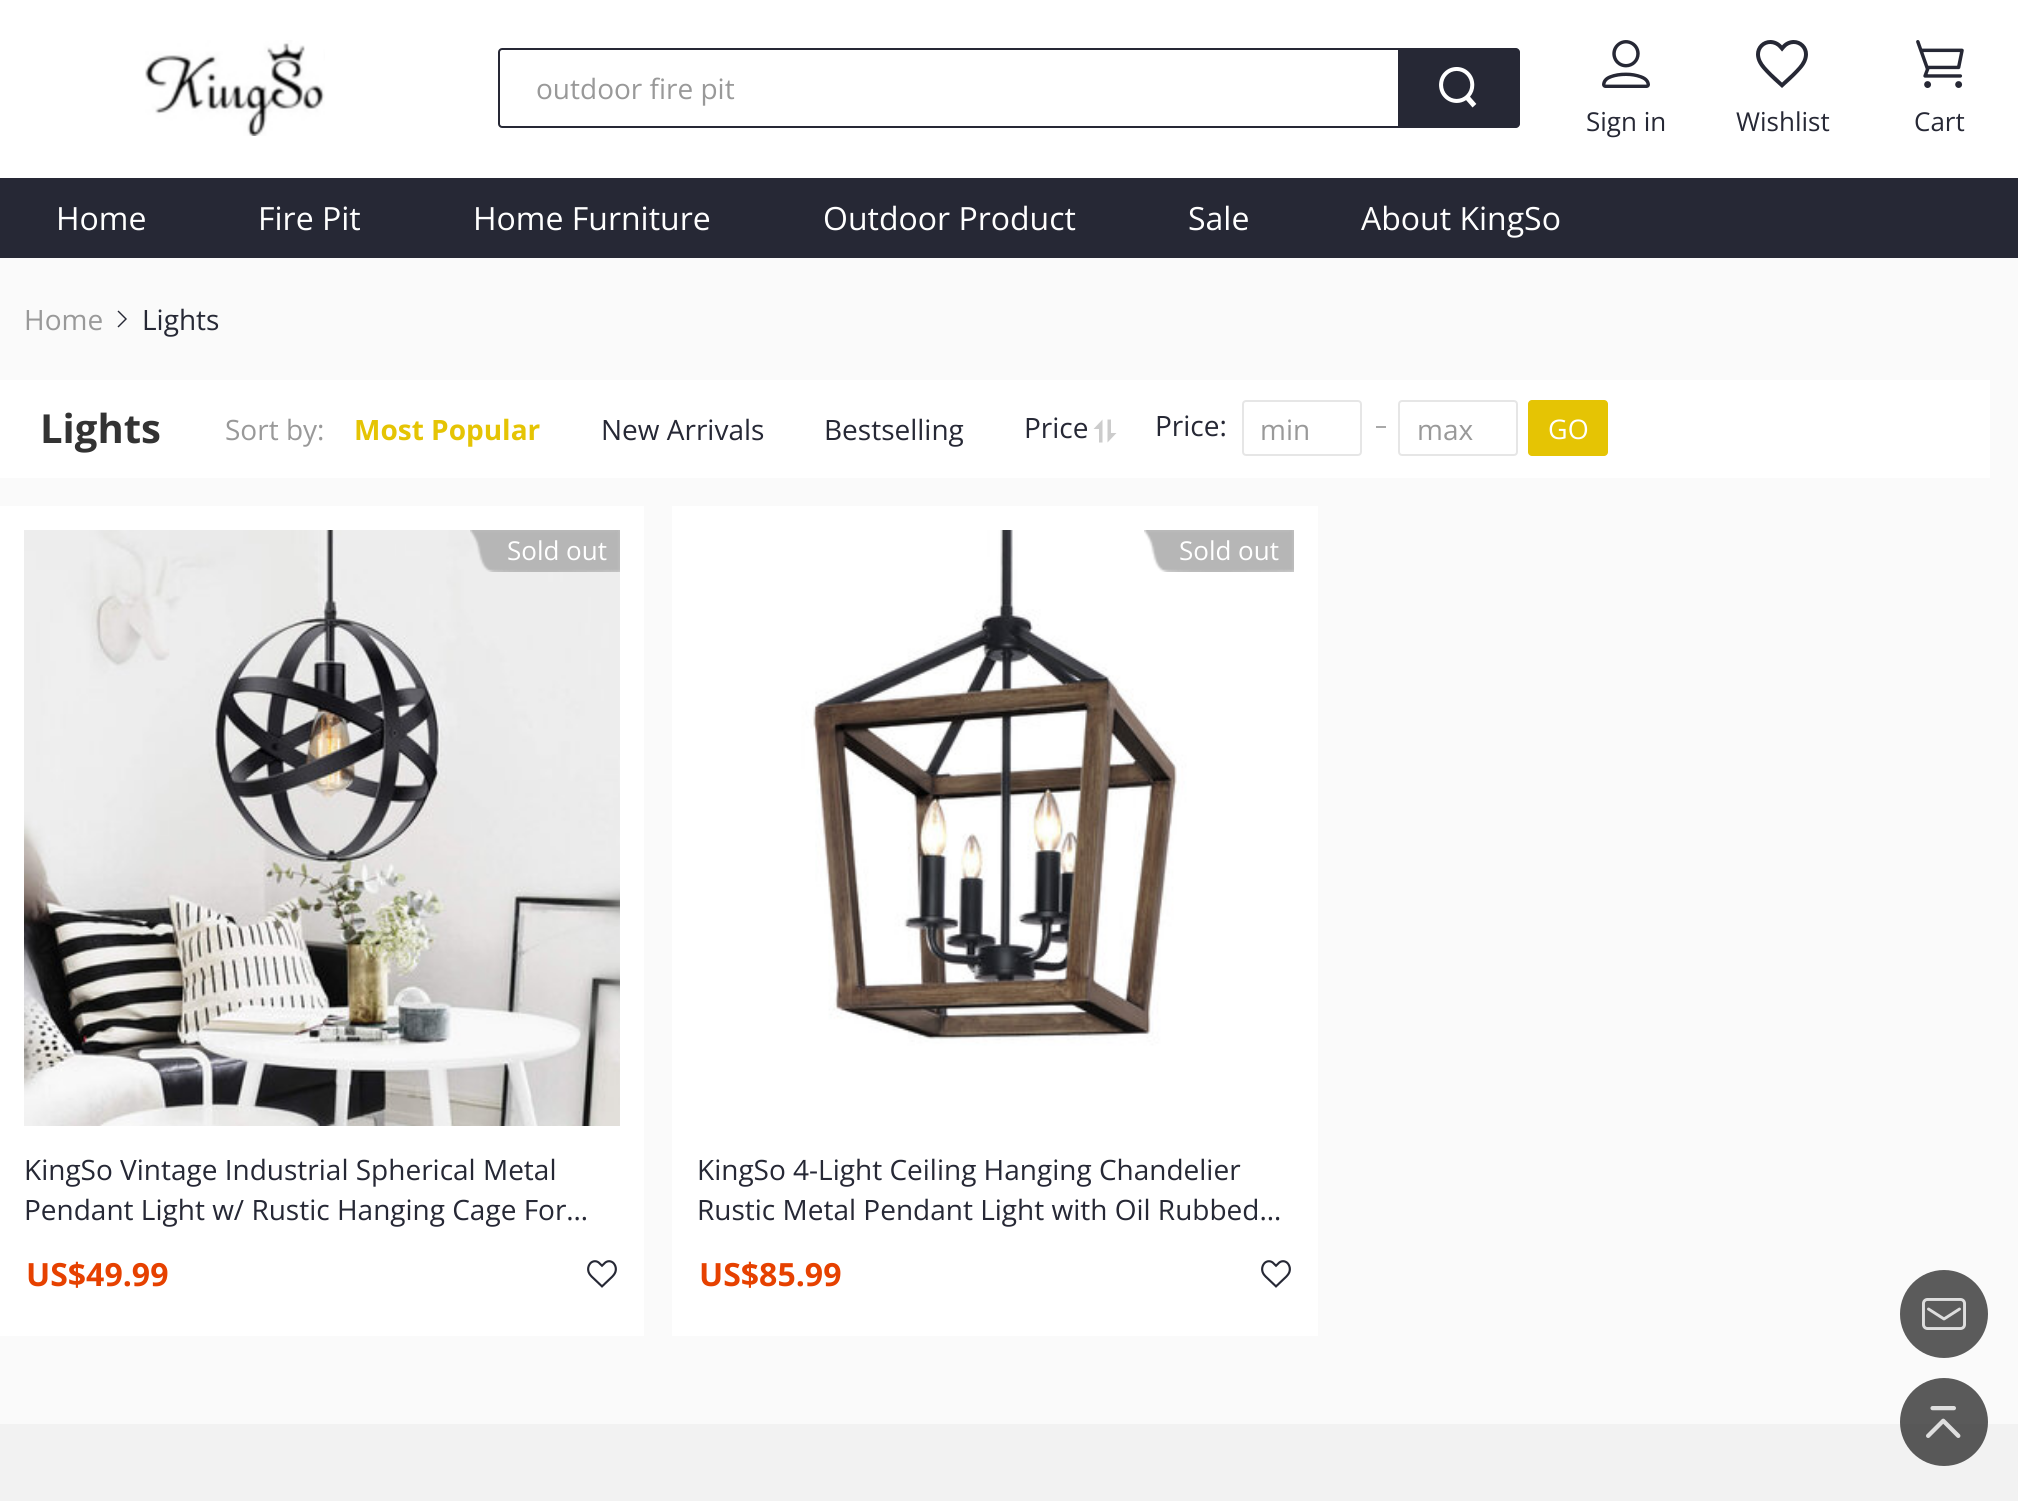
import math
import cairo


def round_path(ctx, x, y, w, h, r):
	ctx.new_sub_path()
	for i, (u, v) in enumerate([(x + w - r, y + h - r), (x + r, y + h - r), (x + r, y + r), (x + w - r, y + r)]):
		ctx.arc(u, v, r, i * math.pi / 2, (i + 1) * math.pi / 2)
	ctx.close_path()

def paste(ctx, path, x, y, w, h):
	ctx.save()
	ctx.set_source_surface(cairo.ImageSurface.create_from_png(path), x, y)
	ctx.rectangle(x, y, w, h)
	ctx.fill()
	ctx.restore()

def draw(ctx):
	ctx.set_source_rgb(1, 1, 1)
	ctx.paint()
	paste(ctx, 'media/1.png', 145, 40, 180, 96)
	ctx.new_path()
	ctx.move_to(502, 49)
	ctx.line_to(1399, 49)
	ctx.line_to(1399, 127)
	ctx.line_to(502, 127)
	ctx.curve_to(500.5, 127, 499, 125.5, 499, 124)
	ctx.line_to(499, 52)
	ctx.curve_to(499, 50.5, 500.5, 49, 502, 49)
	ctx.close_path()
	ctx.set_source_rgb(0.149, 0.157, 0.208)
	ctx.stroke()
	ctx.select_font_face('Open Sans')
	ctx.set_font_size(28)
	ctx.set_source_rgb(0.6, 0.6, 0.6)
	ctx.move_to(536, 99)
	ctx.show_text('outdoor fire pit')
	ctx.set_source_rgb(0.149, 0.157, 0.208)
	ctx.new_path()
	ctx.move_to(1400, 48)
	ctx.line_to(1516, 48)
	ctx.curve_to(1518, 48, 1520, 50, 1520, 52)
	ctx.line_to(1520, 124)
	ctx.curve_to(1520, 126, 1518, 128, 1516, 128)
	ctx.line_to(1400, 128)
	ctx.close_path()
	ctx.fill()
	paste(ctx, 'media/2.png', 1439, 67, 38, 41)
	paste(ctx, 'media/3.png', 1602, 40, 48, 48)
	ctx.set_font_size(26)
	ctx.move_to(1586, 131)
	ctx.show_text('Sign in')
	paste(ctx, 'media/4.png', 1756, 40, 52, 48)
	ctx.move_to(1736, 131)
	ctx.show_text('Wishlist')
	paste(ctx, 'media/5.png', 1916, 40, 48, 48)
	ctx.move_to(1914, 131)
	ctx.show_text('Cart')
	ctx.rectangle(0, 178, 2018, 80)
	ctx.fill()
	ctx.set_font_size(32)
	ctx.set_source_rgb(1, 1, 1)
	for x, y, s in [
		(56, 230, 'Home'),
		(258, 230, 'Fire Pit'),
		(473, 230, 'Home Furniture'),
		(823, 230, 'Outdoor Product'),
		(1188, 230, 'Sale'),
		(1361, 230, 'About KingSo'),
	]:
		ctx.move_to(x, y)
		ctx.show_text(s)
	ctx.set_source_rgb(0.98, 0.98, 0.98)
	ctx.rectangle(0, 258, 2018, 1166)
	ctx.fill()
	ctx.set_font_size(28)
	ctx.set_source_rgb(0.6, 0.6, 0.6)
	ctx.move_to(24, 330)
	ctx.show_text('Home')
	ctx.set_source_rgb(0.149, 0.157, 0.208)
	ctx.new_path()
	ctx.move_to(118.5, 327.5)
	ctx.line_to(117.5, 326.5)
	ctx.line_to(125, 319)
	ctx.line_to(117.5, 311.5)
	ctx.line_to(118.5, 310.5)
	ctx.line_to(127, 319)
	ctx.close_path()
	ctx.fill()
	ctx.move_to(142, 330)
	ctx.show_text('Lights')
	ctx.set_source_rgb(1, 1, 1)
	ctx.rectangle(0, 380, 1990, 98)
	ctx.fill()
	ctx.select_font_face('Open Sans', cairo.FONT_SLANT_NORMAL, cairo.FONT_WEIGHT_BOLD)
	ctx.set_font_size(40)
	ctx.set_source_rgb(0.2, 0.2, 0.2)
	ctx.move_to(40, 443)
	ctx.show_text('Lights')
	ctx.select_font_face('Open Sans')
	ctx.set_font_size(28)
	ctx.set_source_rgb(0.6, 0.6, 0.6)
	ctx.move_to(225, 440)
	ctx.show_text('Sort by:')
	ctx.select_font_face('Open Sans', cairo.FONT_SLANT_NORMAL, cairo.FONT_WEIGHT_BOLD)
	ctx.set_source_rgb(0.898, 0.769, 0.016)
	ctx.move_to(354, 440)
	ctx.show_text('Most Popular')
	ctx.select_font_face('Open Sans')
	ctx.set_source_rgb(0.149, 0.157, 0.208)
	for x, y, s in [
		(601, 440, 'New Arrivals'),
		(824, 440, 'Bestselling'),
		(1024, 438, 'Price'),
	]:
		ctx.move_to(x, y)
		ctx.show_text(s)
	ctx.set_source_rgb(0.8, 0.8, 0.8)
	ctx.new_path()
	ctx.move_to(1099, 442.5)
	ctx.line_to(1099, 429)
	ctx.line_to(1093.5, 429)
	ctx.line_to(1102.5, 419.5)
	ctx.line_to(1102.5, 442.5)
	ctx.close_path()
	ctx.move_to(1116.5, 433)
	ctx.line_to(1107.5, 442.5)
	ctx.line_to(1107.5, 419.5)
	ctx.line_to(1111, 419.5)
	ctx.line_to(1111, 433)
	ctx.close_path()
	ctx.fill()
	ctx.set_source_rgb(0.149, 0.157, 0.208)
	ctx.move_to(1155, 436)
	ctx.show_text('Price:')
	round_path(ctx, 1243, 401, 118, 54, 3)
	ctx.set_source_rgb(0.902, 0.902, 0.902)
	ctx.stroke()
	ctx.set_source_rgb(0.6, 0.6, 0.6)
	ctx.move_to(1260, 440)
	ctx.show_text('min')
	ctx.set_source_rgb(0.663, 0.663, 0.663)
	ctx.rectangle(1376, 426, 10, 2)
	ctx.fill()
	round_path(ctx, 1399, 401, 118, 54, 3)
	ctx.set_source_rgb(0.902, 0.902, 0.902)
	ctx.stroke()
	ctx.set_source_rgb(0.6, 0.6, 0.6)
	ctx.move_to(1417, 440)
	ctx.show_text('max')
	ctx.set_source_rgb(0.898, 0.769, 0.016)
	round_path(ctx, 1528, 400, 80, 56, 4)
	ctx.fill()
	ctx.set_font_size(27)
	ctx.set_source_rgb(1, 1, 1)
	ctx.move_to(1548, 439)
	ctx.show_text('GO')
	ctx.rectangle(0, 506, 644, 830)
	ctx.fill()
	paste(ctx, 'media/6.png', 24, 530, 596, 596)
	paste(ctx, 'media/7.png', 470, 530, 150, 42)
	ctx.set_font_size(26)
	ctx.move_to(507, 560)
	ctx.show_text('Sold out')
	ctx.set_font_size(28)
	ctx.set_source_rgb(0.149, 0.157, 0.208)
	ctx.move_to(24, 1180)
	ctx.show_text('KingSo Vintage Industrial Spherical Metal')
	ctx.move_to(24, 1220)
	ctx.show_text('Pendant Light w/ Rustic Hanging Cage For…')
	ctx.select_font_face('Open Sans', cairo.FONT_SLANT_NORMAL, cairo.FONT_WEIGHT_BOLD)
	ctx.set_font_size(32)
	ctx.set_source_rgb(0.902, 0.255, 0)
	ctx.move_to(26, 1286)
	ctx.show_text('US$49.99')
	paste(ctx, 'media/8.png', 587, 1260, 30, 28)
	ctx.set_source_rgb(1, 1, 1)
	ctx.rectangle(672, 506, 646, 830)
	ctx.fill()
	paste(ctx, 'media/9.png', 696, 530, 598, 596)
	paste(ctx, 'media/10.png', 1144, 530, 150, 42)
	ctx.select_font_face('Open Sans')
	ctx.set_font_size(26)
	ctx.move_to(1179, 560)
	ctx.show_text('Sold out')
	ctx.set_font_size(28)
	ctx.set_source_rgb(0.149, 0.157, 0.208)
	ctx.move_to(697, 1180)
	ctx.show_text('KingSo 4-Light Ceiling Hanging Chandelier')
	ctx.move_to(697, 1220)
	ctx.show_text('Rustic Metal Pendant Light with Oil Rubbed…')
	ctx.select_font_face('Open Sans', cairo.FONT_SLANT_NORMAL, cairo.FONT_WEIGHT_BOLD)
	ctx.set_font_size(32)
	ctx.set_source_rgb(0.902, 0.255, 0)
	ctx.move_to(699, 1286)
	ctx.show_text('US$85.99')
	paste(ctx, 'media/8.png', 1261, 1260, 30, 28)
	ctx.set_source_rgb(0.357, 0.357, 0.357)
	ctx.arc(1944, 1314, 44, 0, 2 * math.pi)
	ctx.fill()
	paste(ctx, 'media/11.png', 1922, 1298, 44, 32)
	ctx.set_source_rgb(0.949, 0.949, 0.949)
	ctx.rectangle(0, 1424, 2018, 77)
	ctx.fill()
	ctx.set_source_rgba(0.2, 0.2, 0.2, 0.8)
	ctx.arc(1944, 1422, 44, 0, 2 * math.pi)
	ctx.fill()
	paste(ctx, 'media/12.png', 1926, 1406, 35, 32)


surface = cairo.ImageSurface(cairo.FORMAT_RGB24, 2018, 1501)
ctx = cairo.Context(surface)
options = cairo.FontOptions()
options.set_hint_metrics(cairo.HINT_METRICS_OFF)
options.set_hint_style(cairo.HINT_STYLE_NONE)
ctx.set_font_options(options)
ctx.set_miter_limit(4)
draw(ctx)
surface.write_to_png('image.png')
